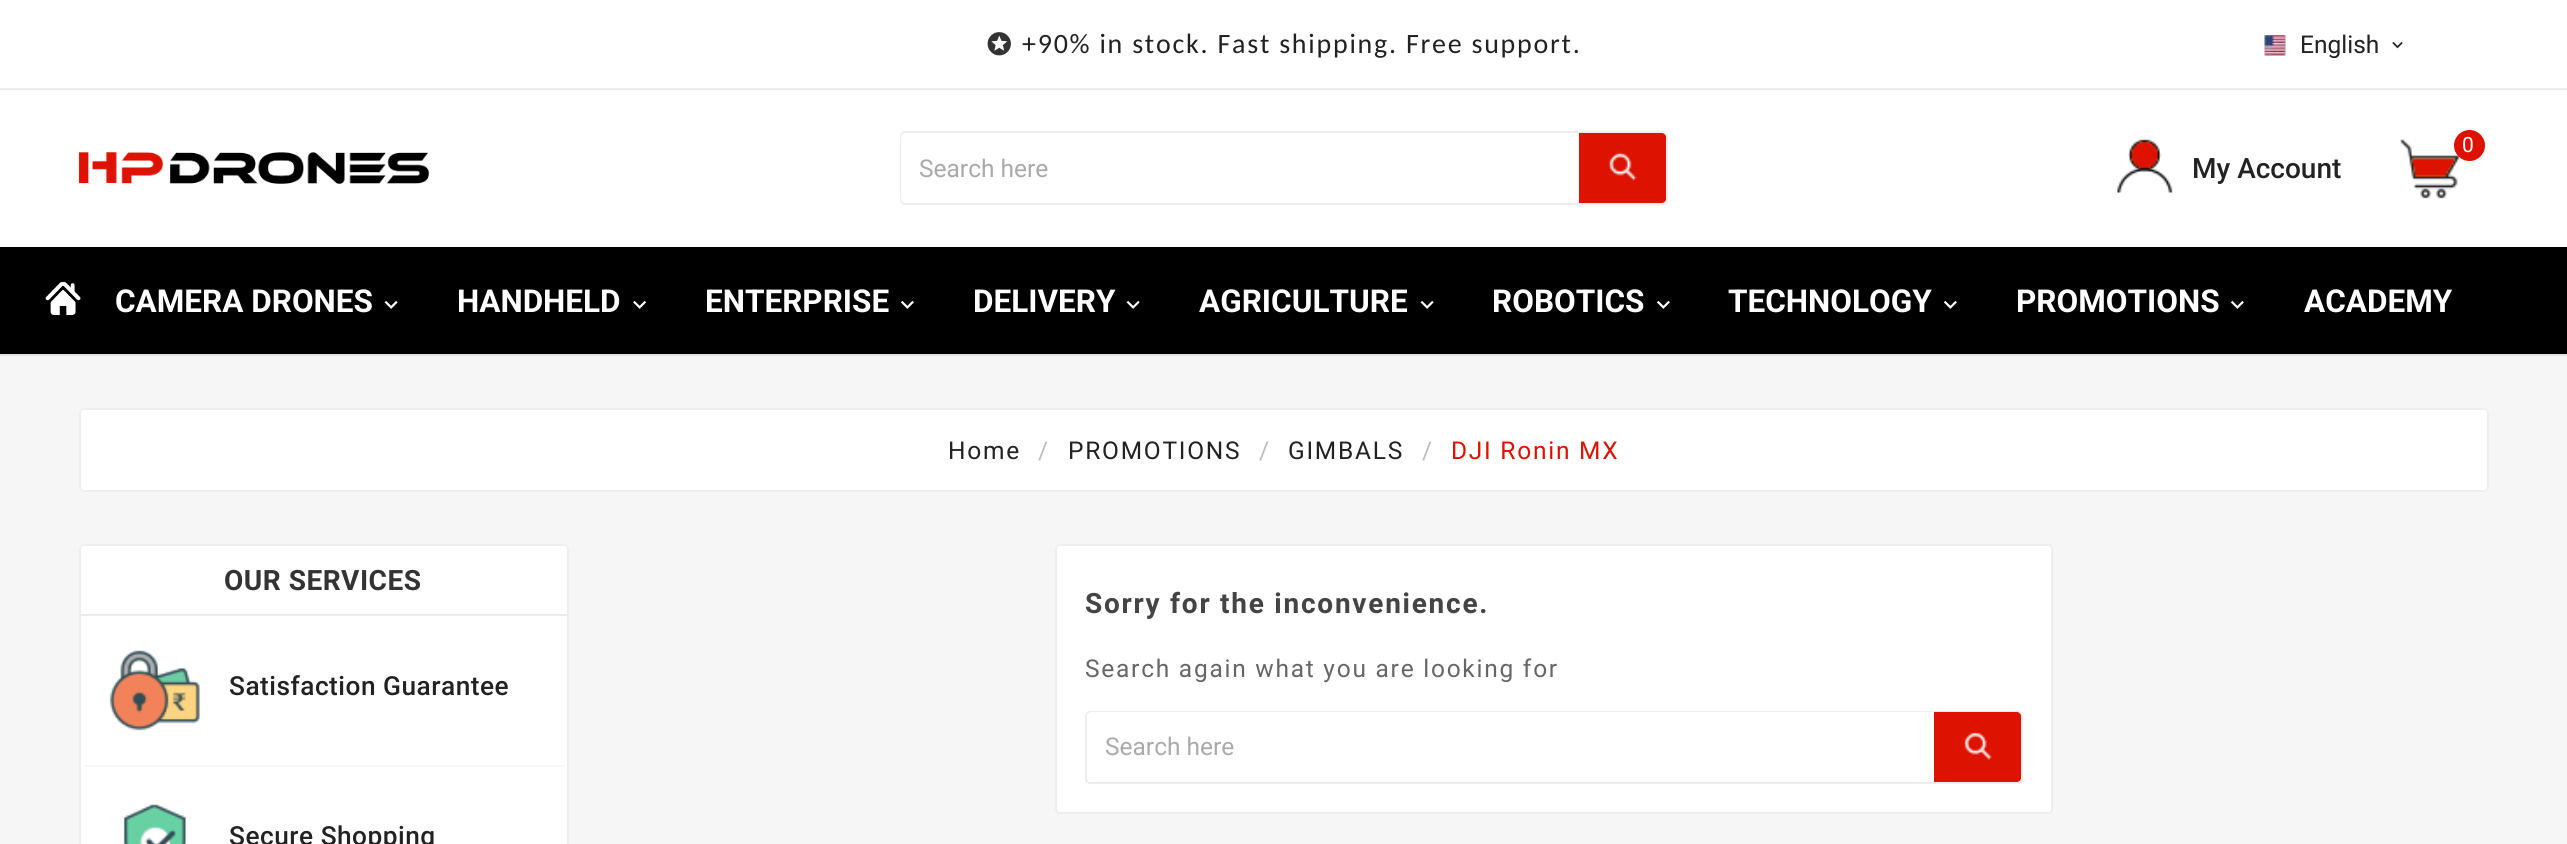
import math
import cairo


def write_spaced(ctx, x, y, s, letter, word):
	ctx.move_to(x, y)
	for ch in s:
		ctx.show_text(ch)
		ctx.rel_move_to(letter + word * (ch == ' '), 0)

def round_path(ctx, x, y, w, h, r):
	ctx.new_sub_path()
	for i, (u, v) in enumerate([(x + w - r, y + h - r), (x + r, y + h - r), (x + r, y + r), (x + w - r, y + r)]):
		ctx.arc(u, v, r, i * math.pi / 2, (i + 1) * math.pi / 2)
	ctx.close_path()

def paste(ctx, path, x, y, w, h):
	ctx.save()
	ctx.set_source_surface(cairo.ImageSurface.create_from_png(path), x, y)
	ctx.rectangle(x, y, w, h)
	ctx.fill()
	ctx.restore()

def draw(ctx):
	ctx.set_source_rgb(0.961, 0.961, 0.961)
	ctx.paint()
	ctx.set_source_rgb(1, 1, 1)
	ctx.rectangle(0, 0, 2567, 247)
	ctx.fill()
	ctx.set_source_rgb(0.898, 0.898, 0.898)
	ctx.rectangle(0, 354, 2567, 2)
	ctx.fill()
	ctx.set_source_rgb(0.929, 0.929, 0.929)
	ctx.rectangle(0, 88, 2567, 2)
	ctx.fill()
	paste(ctx, 'media/1.png', 987, 32, 24, 24)
	ctx.select_font_face('Carlito')
	ctx.set_font_size(28)
	ctx.set_source_rgb(0.133, 0.133, 0.133)
	write_spaced(ctx, 1022, 53, '+90% in stock. Fast shipping. Free support.', 1.75, 0)
	paste(ctx, 'media/2.png', 2264, 35, 22, 21)
	ctx.select_font_face('Roboto')
	ctx.set_font_size(24.5)
	ctx.move_to(2300, 53)
	ctx.show_text('English')
	paste(ctx, 'media/3.png', 2392, 41, 11, 8)
	paste(ctx, 'media/4.png', 78, 152, 351, 32)
	round_path(ctx, 901, 132, 766, 72, 4)
	ctx.set_source_rgb(0.929, 0.929, 0.929)
	ctx.stroke()
	ctx.set_source_rgb(1, 1, 1)
	ctx.new_path()
	ctx.move_to(905, 133)
	ctx.line_to(1579, 133)
	ctx.line_to(1579, 203)
	ctx.line_to(905, 203)
	ctx.curve_to(903, 203, 901, 201, 901, 199)
	ctx.line_to(901, 137)
	ctx.curve_to(901, 135, 903, 133, 905, 133)
	ctx.close_path()
	ctx.fill()
	ctx.set_source_rgb(0.667, 0.667, 0.667)
	ctx.move_to(919, 177)
	ctx.show_text('Search here')
	ctx.set_source_rgb(0.867, 0.071, 0.004)
	ctx.new_path()
	ctx.move_to(1579, 133)
	ctx.line_to(1662, 133)
	ctx.curve_to(1664, 133, 1666, 135, 1666, 137)
	ctx.line_to(1666, 199)
	ctx.curve_to(1666, 201, 1664, 203, 1662, 203)
	ctx.line_to(1579, 203)
	ctx.close_path()
	ctx.fill()
	paste(ctx, 'media/5.png', 1608, 152, 29, 29)
	paste(ctx, 'media/6.png', 2400, 139, 60, 60)
	ctx.arc(2469.5, 145.5, 15.5, 0, 2 * math.pi)
	ctx.fill()
	ctx.set_font_size(21)
	ctx.set_source_rgb(1, 1, 1)
	write_spaced(ctx, 2462, 152, '0', 1.75, 0)
	paste(ctx, 'media/7.png', 2117, 139, 56, 54)
	ctx.select_font_face('Roboto Medium')
	ctx.set_font_size(28)
	ctx.set_source_rgb(0.133, 0.133, 0.133)
	ctx.move_to(2192, 178)
	ctx.show_text('My Account')
	ctx.set_source_rgb(0, 0, 0)
	ctx.rectangle(0, 247, 2567, 107)
	ctx.fill()
	paste(ctx, 'media/8.png', 45, 281, 36, 35)
	ctx.select_font_face('Roboto', cairo.FONT_SLANT_NORMAL, cairo.FONT_WEIGHT_BOLD)
	ctx.set_font_size(31.5)
	ctx.set_source_rgb(1, 1, 1)
	ctx.move_to(115, 312)
	ctx.show_text('CAMERA DRONES')
	paste(ctx, 'media/9.png', 384, 300, 14, 9)
	ctx.move_to(457, 312)
	ctx.show_text('HANDHELD')
	paste(ctx, 'media/10.png', 633, 300, 14, 9)
	ctx.move_to(705, 312)
	ctx.show_text('ENTERPRISE')
	paste(ctx, 'media/11.png', 900, 300, 14, 9)
	ctx.move_to(973, 312)
	ctx.show_text('DELIVERY')
	paste(ctx, 'media/9.png', 1126, 300, 14, 9)
	ctx.move_to(1199, 312)
	ctx.show_text('AGRICULTURE')
	paste(ctx, 'media/9.png', 1420, 300, 14, 9)
	ctx.move_to(1492, 312)
	ctx.show_text('ROBOTICS')
	paste(ctx, 'media/11.png', 1656, 300, 14, 9)
	ctx.move_to(1728, 312)
	ctx.show_text('TECHNOLOGY')
	paste(ctx, 'media/11.png', 1943, 300, 14, 9)
	ctx.move_to(2016, 312)
	ctx.show_text('PROMOTIONS')
	paste(ctx, 'media/11.png', 2230, 300, 14, 9)
	ctx.move_to(2304, 312)
	ctx.show_text('ACADEMY')
	round_path(ctx, 79, 408, 2410, 84, 5)
	ctx.fill()
	round_path(ctx, 80, 409, 2408, 82, 4)
	ctx.set_source_rgba(0, 0, 0, 0.07)
	ctx.stroke()
	ctx.select_font_face('Roboto')
	ctx.set_font_size(24.5)
	ctx.set_source_rgb(0.133, 0.133, 0.133)
	write_spaced(ctx, 948, 459, 'Home', 1.75, 0)
	ctx.set_source_rgb(0.741, 0.741, 0.741)
	write_spaced(ctx, 1038, 459, '/', 1.75, 0)
	ctx.set_source_rgb(0.133, 0.133, 0.133)
	write_spaced(ctx, 1068, 459, 'PROMOTIONS', 1.75, 0)
	ctx.set_source_rgb(0.741, 0.741, 0.741)
	write_spaced(ctx, 1259, 459, '/', 1.75, 0)
	ctx.set_source_rgb(0.133, 0.133, 0.133)
	write_spaced(ctx, 1288, 459, 'GIMBALS', 1.75, 0)
	ctx.set_source_rgb(0.741, 0.741, 0.741)
	write_spaced(ctx, 1422, 459, '/', 1.75, 0)
	ctx.set_source_rgb(0.867, 0.071, 0.004)
	write_spaced(ctx, 1451, 459, 'DJI Ronin MX', 1.75, 0)
	ctx.set_source_rgb(1, 1, 1)
	round_path(ctx, 79, 544, 490, 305, 5)
	ctx.fill()
	round_path(ctx, 80, 545, 488, 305, 4)
	ctx.set_source_rgba(0, 0, 0, 0.07)
	ctx.stroke()
	ctx.select_font_face('Roboto', cairo.FONT_SLANT_NORMAL, cairo.FONT_WEIGHT_BOLD)
	ctx.set_font_size(28)
	ctx.set_source_rgb(0.2, 0.2, 0.2)
	write_spaced(ctx, 224, 590, 'OUR SERVICES', 0.5, 0)
	ctx.set_source_rgb(0.929, 0.929, 0.929)
	ctx.rectangle(81, 614, 486, 2)
	ctx.fill()
	ctx.set_source_rgb(0.969, 0.969, 0.969)
	ctx.rectangle(84, 765, 481, 2)
	ctx.fill()
	paste(ctx, 'media/12.png', 109, 650, 91, 81)
	ctx.select_font_face('Roboto Medium')
	ctx.set_font_size(26.25)
	ctx.set_source_rgb(0.133, 0.133, 0.133)
	write_spaced(ctx, 229, 695, 'Satisfaction Guarantee', 0.5, 0)
	paste(ctx, 'media/13.png', 123, 804, 63, 40)
	write_spaced(ctx, 229, 845, 'Secure Shopping', 0.5, 0)
	ctx.set_source_rgb(1, 1, 1)
	round_path(ctx, 1055, 544, 998, 270, 5)
	ctx.fill()
	round_path(ctx, 1056, 545, 996, 268, 4)
	ctx.set_source_rgba(0, 0, 0, 0.07)
	ctx.stroke()
	ctx.select_font_face('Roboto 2', cairo.FONT_SLANT_NORMAL, cairo.FONT_WEIGHT_BOLD)
	ctx.set_font_size(28)
	ctx.set_source_rgb(0.267, 0.267, 0.267)
	write_spaced(ctx, 1085, 613, 'Sorry for the inconvenience.', 1.75, 0)
	ctx.select_font_face('Roboto')
	ctx.set_font_size(24.5)
	ctx.set_source_rgb(0.4, 0.4, 0.4)
	write_spaced(ctx, 1085, 677, 'Search again what you are looking for', 1.75, 0)
	round_path(ctx, 1086, 712, 936, 71, 4)
	ctx.set_source_rgb(0.929, 0.929, 0.929)
	ctx.stroke()
	ctx.set_source_rgb(1, 1, 1)
	ctx.new_path()
	ctx.move_to(1091, 712)
	ctx.line_to(1934, 712)
	ctx.line_to(1934, 782)
	ctx.line_to(1091, 782)
	ctx.curve_to(1089, 782, 1087, 780, 1087, 778)
	ctx.line_to(1087, 716)
	ctx.curve_to(1087, 714, 1089, 712, 1091, 712)
	ctx.close_path()
	ctx.fill()
	ctx.set_source_rgb(0.667, 0.667, 0.667)
	ctx.move_to(1105, 755)
	ctx.show_text('Search here')
	ctx.set_source_rgb(0.867, 0.071, 0.004)
	ctx.new_path()
	ctx.move_to(1934, 712)
	ctx.line_to(2017, 712)
	ctx.curve_to(2019, 712, 2021, 714, 2021, 716)
	ctx.line_to(2021, 778)
	ctx.curve_to(2021, 780, 2019, 782, 2017, 782)
	ctx.line_to(1934, 782)
	ctx.close_path()
	ctx.fill()
	paste(ctx, 'media/14.png', 1964, 731, 28, 29)


surface = cairo.ImageSurface(cairo.FORMAT_RGB24, 2567, 844)
ctx = cairo.Context(surface)
options = cairo.FontOptions()
options.set_hint_metrics(cairo.HINT_METRICS_OFF)
options.set_hint_style(cairo.HINT_STYLE_NONE)
ctx.set_font_options(options)
ctx.set_miter_limit(4)
draw(ctx)
surface.write_to_png('image.png')
